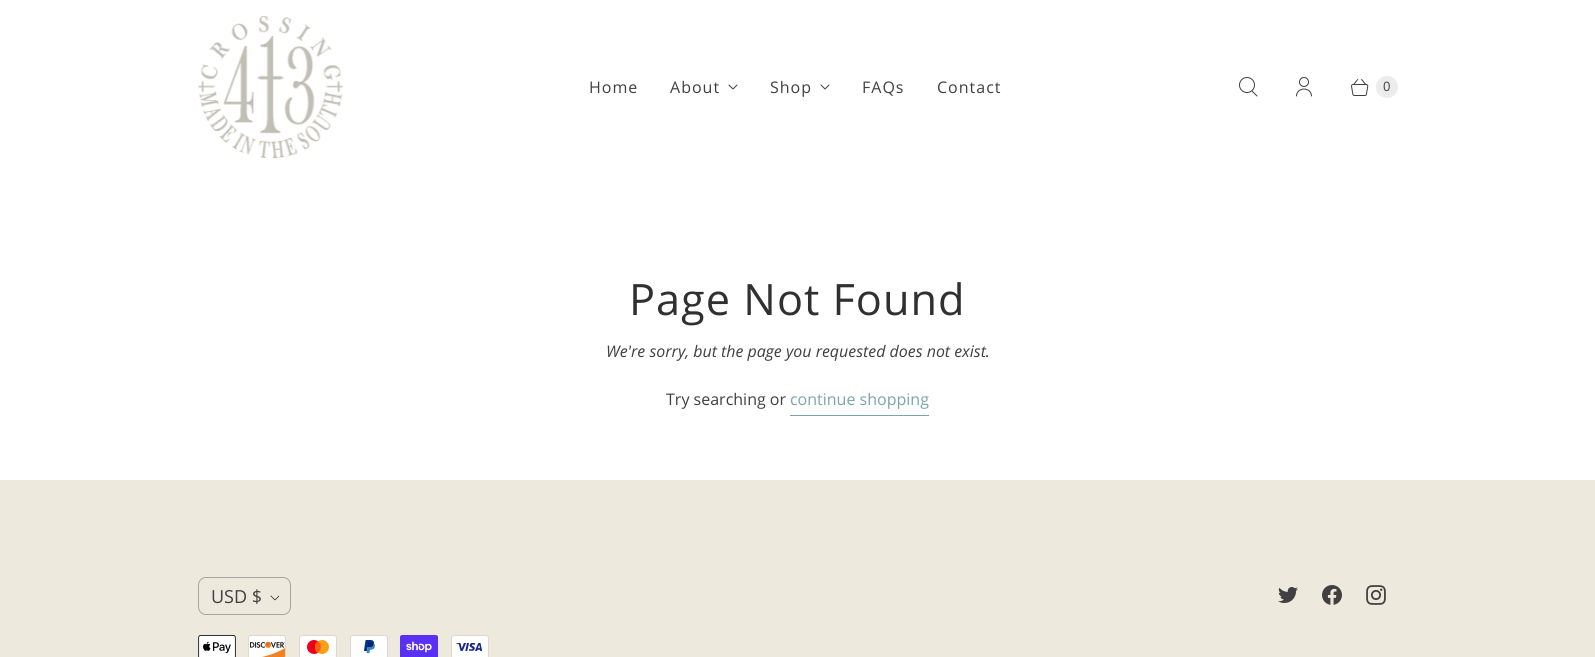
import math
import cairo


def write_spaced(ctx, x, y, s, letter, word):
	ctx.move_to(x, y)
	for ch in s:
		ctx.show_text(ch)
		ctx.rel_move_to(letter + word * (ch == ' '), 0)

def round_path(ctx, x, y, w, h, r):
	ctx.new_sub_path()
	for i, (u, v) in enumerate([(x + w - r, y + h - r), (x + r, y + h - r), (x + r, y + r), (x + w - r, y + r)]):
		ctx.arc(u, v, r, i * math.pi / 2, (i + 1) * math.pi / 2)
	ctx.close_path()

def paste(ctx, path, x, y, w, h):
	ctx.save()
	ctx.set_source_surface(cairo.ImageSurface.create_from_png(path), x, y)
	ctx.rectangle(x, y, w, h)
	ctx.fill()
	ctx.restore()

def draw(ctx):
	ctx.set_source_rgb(1, 1, 1)
	ctx.paint()
	paste(ctx, 'media/1.png', 198, 16, 145, 142)
	ctx.select_font_face('Open Sans')
	ctx.set_font_size(16)
	ctx.set_source_rgb(0.251, 0.251, 0.251)
	write_spaced(ctx, 589, 93, 'Home', 1, 0)
	write_spaced(ctx, 670, 93, 'About', 1, 0)
	paste(ctx, 'media/2.png', 728, 84, 10, 6)
	write_spaced(ctx, 770, 93, 'Shop', 1, 0)
	paste(ctx, 'media/2.png', 820, 84, 10, 6)
	write_spaced(ctx, 862, 93, 'FAQs', 1, 0)
	write_spaced(ctx, 937, 93, 'Contact', 1, 0)
	paste(ctx, 'media/3.png', 1239, 77, 19, 20)
	paste(ctx, 'media/4.png', 1296, 77, 16, 20)
	paste(ctx, 'media/5.png', 1351, 79, 18, 17)
	ctx.set_source_rgb(0.925, 0.925, 0.925)
	ctx.arc(1387, 87, 11, 0, 2 * math.pi)
	ctx.fill()
	ctx.set_font_size(13)
	ctx.set_source_rgb(0.251, 0.251, 0.251)
	ctx.move_to(1383, 91)
	ctx.show_text('0')
	ctx.set_font_size(43.25)
	ctx.set_source_rgb(0.188, 0.188, 0.188)
	write_spaced(ctx, 629, 315, 'Page Not Found', 1, 0)
	ctx.select_font_face('Open Sans', cairo.FONT_SLANT_ITALIC)
	ctx.set_font_size(16)
	ctx.set_source_rgb(0.251, 0.251, 0.251)
	ctx.move_to(606, 357)
	ctx.show_text('We\'re sorry, but the page you requested does not exist.')
	ctx.select_font_face('Open Sans')
	ctx.move_to(666, 405)
	ctx.show_text('Try searching or')
	ctx.set_source_rgb(0.482, 0.647, 0.659)
	ctx.move_to(790, 405)
	ctx.show_text('continue shopping')
	ctx.rectangle(790, 415, 139, 1)
	ctx.fill()
	ctx.set_source_rgb(0.929, 0.914, 0.867)
	ctx.rectangle(0, 480, 1595, 177)
	ctx.fill()
	round_path(ctx, 198.5, 577.5, 92, 37, 7.5)
	ctx.set_source_rgb(0.659, 0.647, 0.62)
	ctx.set_line_width(1)
	ctx.stroke()
	ctx.set_font_size(18)
	ctx.set_source_rgb(0.251, 0.251, 0.251)
	ctx.move_to(211, 603)
	ctx.show_text('USD $')
	paste(ctx, 'media/6.png', 270, 595, 9, 6)
	paste(ctx, 'media/7.png', 198, 635, 38, 22)
	paste(ctx, 'media/8.png', 248, 635, 38, 22)
	paste(ctx, 'media/9.png', 299, 635, 38, 22)
	paste(ctx, 'media/10.png', 350, 635, 38, 22)
	paste(ctx, 'media/11.png', 400, 635, 38, 22)
	paste(ctx, 'media/12.png', 451, 635, 38, 22)
	paste(ctx, 'media/13.png', 1278, 587, 20, 16)
	paste(ctx, 'media/14.png', 1322, 585, 20, 20)
	paste(ctx, 'media/15.png', 1366, 585, 20, 20)


surface = cairo.ImageSurface(cairo.FORMAT_RGB24, 1595, 657)
ctx = cairo.Context(surface)
options = cairo.FontOptions()
options.set_hint_metrics(cairo.HINT_METRICS_OFF)
options.set_hint_style(cairo.HINT_STYLE_NONE)
ctx.set_font_options(options)
ctx.set_miter_limit(4)
draw(ctx)
surface.write_to_png('image.png')
